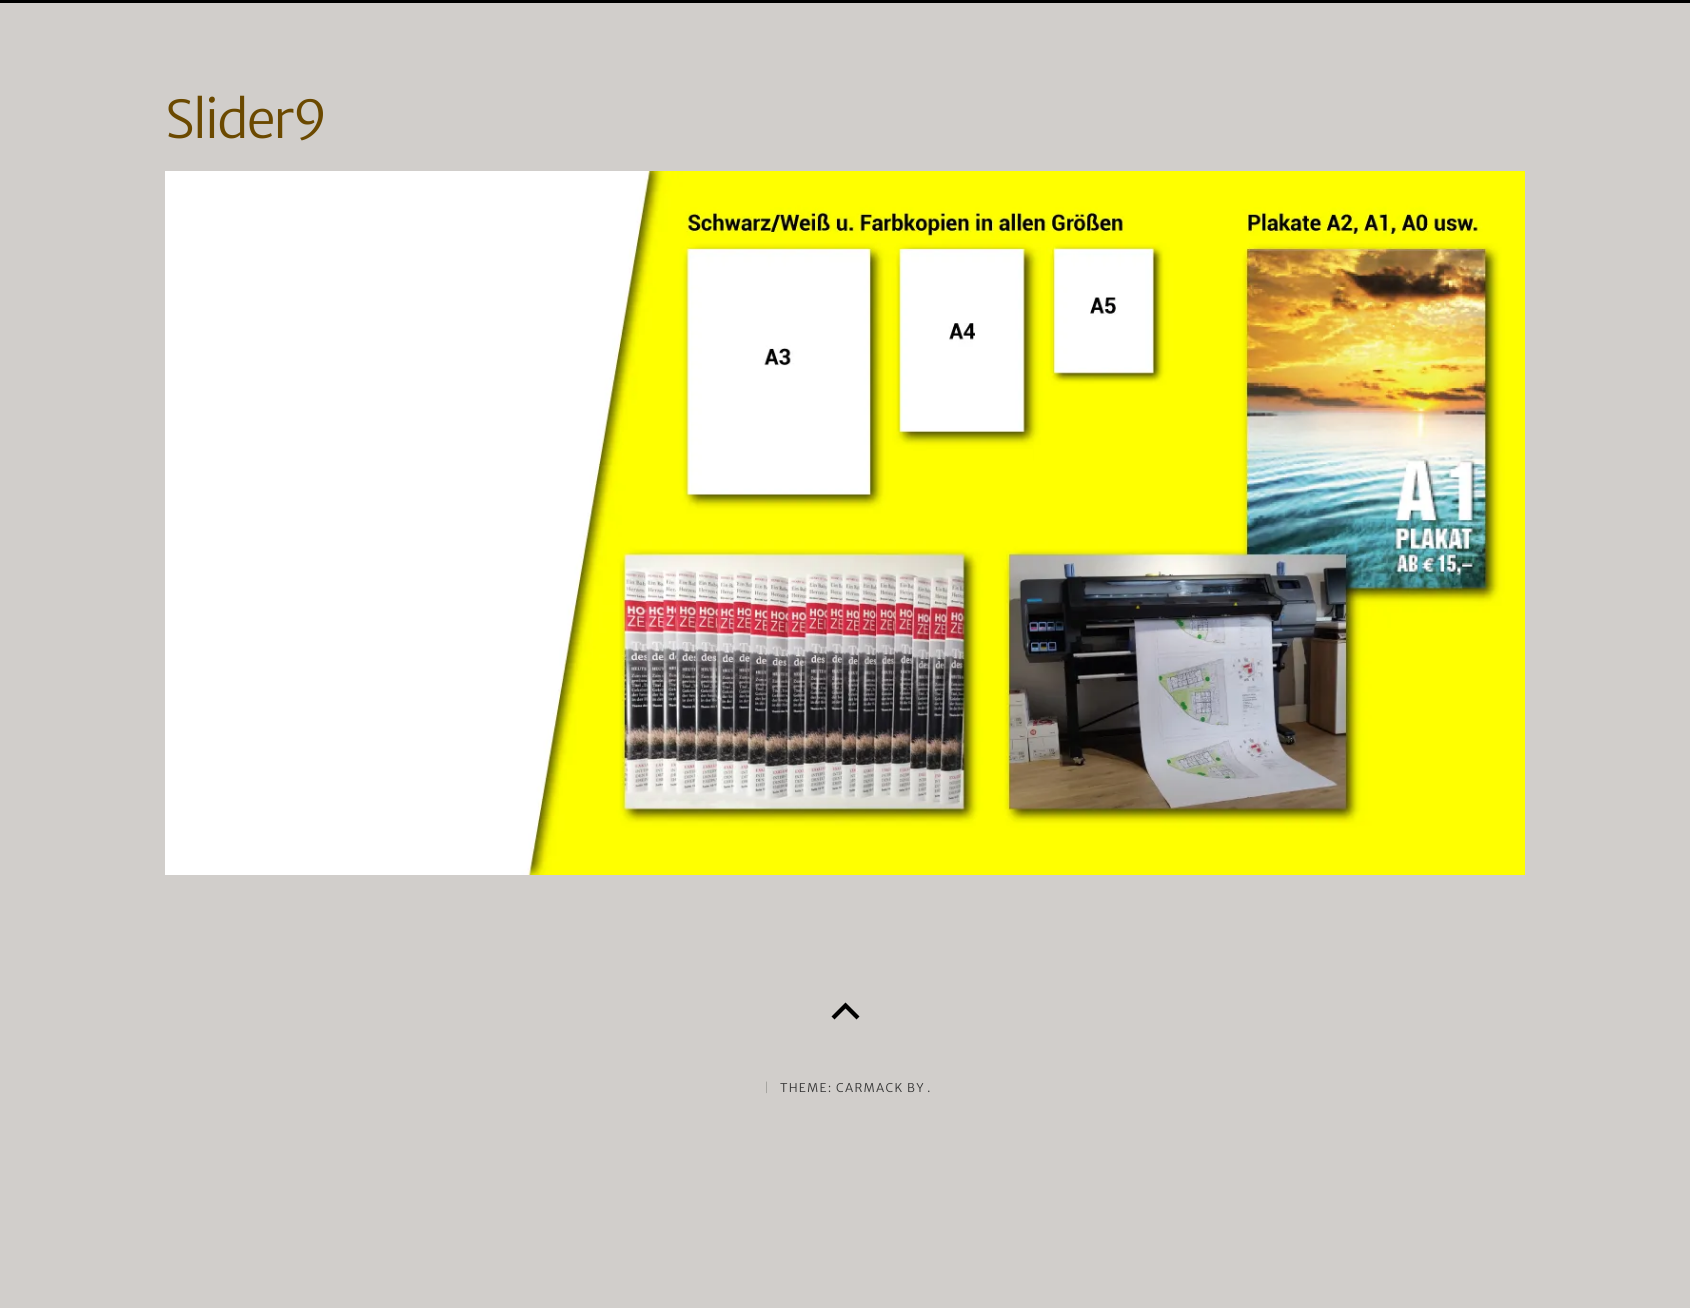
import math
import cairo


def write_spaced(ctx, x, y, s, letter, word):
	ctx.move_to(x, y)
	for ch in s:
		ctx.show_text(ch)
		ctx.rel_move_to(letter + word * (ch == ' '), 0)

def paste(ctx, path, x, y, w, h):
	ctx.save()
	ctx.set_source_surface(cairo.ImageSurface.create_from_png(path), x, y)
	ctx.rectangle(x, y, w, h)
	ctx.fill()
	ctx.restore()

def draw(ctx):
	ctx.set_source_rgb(0.82, 0.808, 0.796)
	ctx.paint()
	ctx.set_source_rgb(0, 0, 0)
	ctx.rectangle(0, 0, 1690, 3)
	ctx.fill()
	ctx.select_font_face('Merriweather Sans Light')
	ctx.set_font_size(52)
	ctx.set_source_rgb(0.42, 0.286, 0)
	write_spaced(ctx, 165, 138, 'Slider9', -2, 0)
	paste(ctx, 'media/1.png', 165, 171, 1360, 704)
	ctx.set_source_rgb(0, 0, 0)
	ctx.set_fill_rule(cairo.FILL_RULE_EVEN_ODD)
	ctx.new_path()
	ctx.move_to(845.5, 1008.5)
	ctx.line_to(856.5, 1019.5)
	ctx.line_to(859.5, 1016.5)
	ctx.line_to(845.5, 1002.5)
	ctx.line_to(831.5, 1016.5)
	ctx.line_to(834.5, 1019.5)
	ctx.close_path()
	ctx.fill()
	ctx.set_font_size(12)
	ctx.set_source_rgb(0.635, 0.627, 0.616)
	write_spaced(ctx, 764, 1092, '|', 1.25, 0)
	ctx.set_source_rgb(0.2, 0.2, 0.2)
	write_spaced(ctx, 780, 1092, 'THEME: CARMACK BY', 1.25, 0)
	write_spaced(ctx, 927, 1092, '.', 1.25, 0)


surface = cairo.ImageSurface(cairo.FORMAT_RGB24, 1690, 1308)
ctx = cairo.Context(surface)
options = cairo.FontOptions()
options.set_hint_metrics(cairo.HINT_METRICS_OFF)
options.set_hint_style(cairo.HINT_STYLE_NONE)
ctx.set_font_options(options)
ctx.set_miter_limit(4)
draw(ctx)
surface.write_to_png('image.png')
